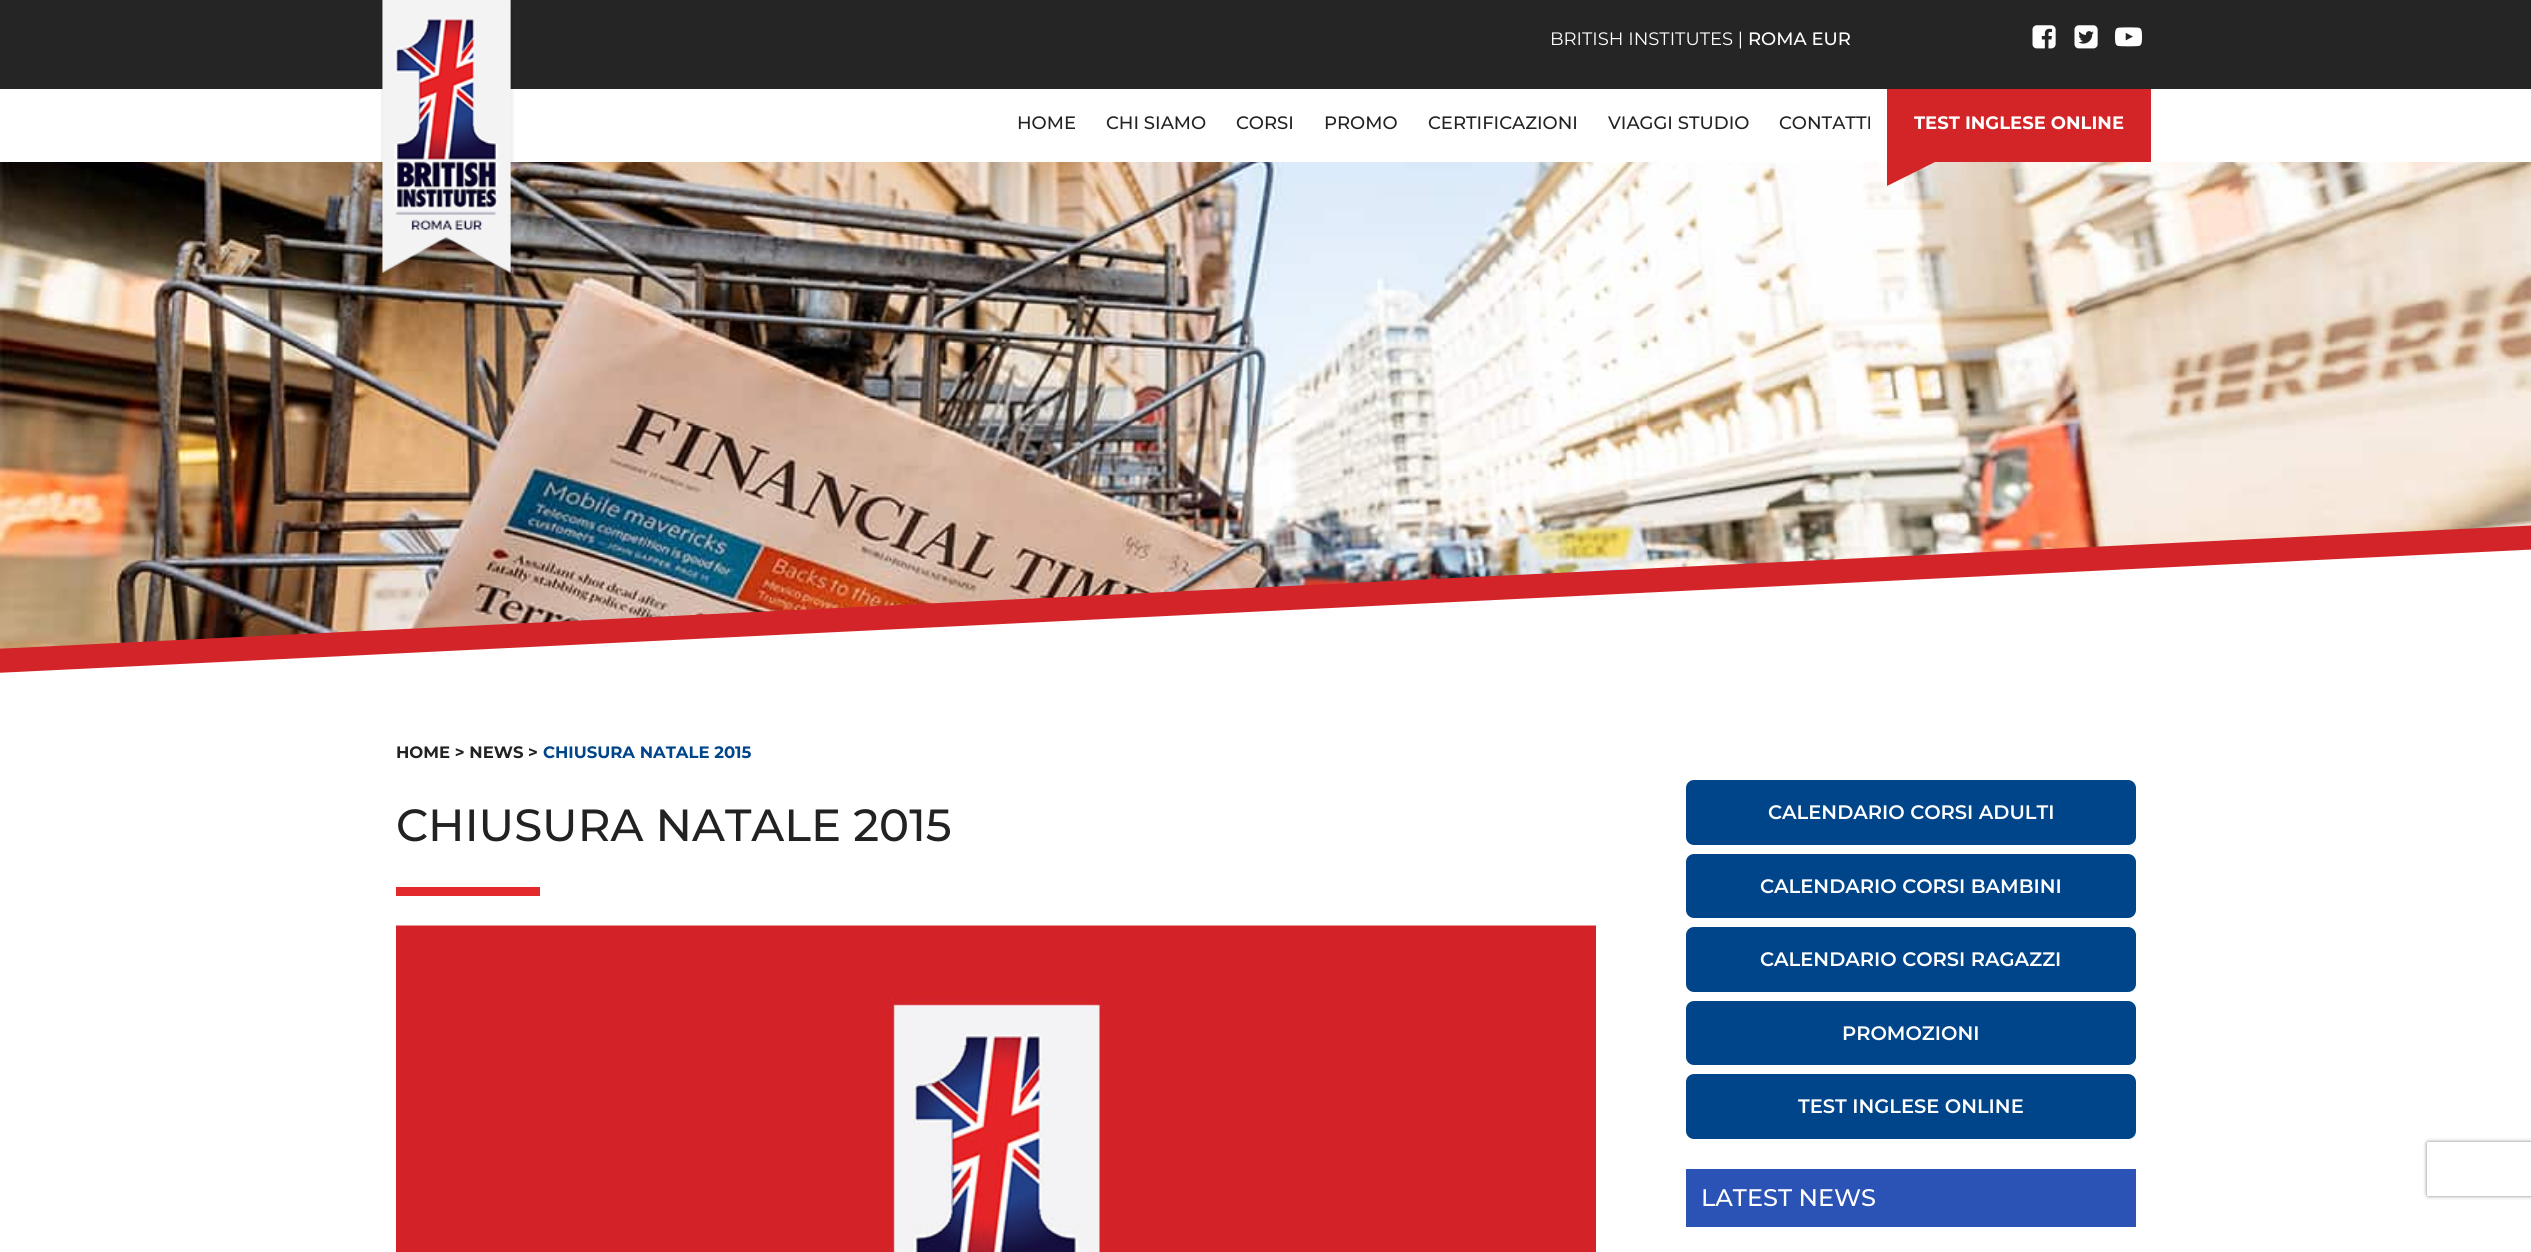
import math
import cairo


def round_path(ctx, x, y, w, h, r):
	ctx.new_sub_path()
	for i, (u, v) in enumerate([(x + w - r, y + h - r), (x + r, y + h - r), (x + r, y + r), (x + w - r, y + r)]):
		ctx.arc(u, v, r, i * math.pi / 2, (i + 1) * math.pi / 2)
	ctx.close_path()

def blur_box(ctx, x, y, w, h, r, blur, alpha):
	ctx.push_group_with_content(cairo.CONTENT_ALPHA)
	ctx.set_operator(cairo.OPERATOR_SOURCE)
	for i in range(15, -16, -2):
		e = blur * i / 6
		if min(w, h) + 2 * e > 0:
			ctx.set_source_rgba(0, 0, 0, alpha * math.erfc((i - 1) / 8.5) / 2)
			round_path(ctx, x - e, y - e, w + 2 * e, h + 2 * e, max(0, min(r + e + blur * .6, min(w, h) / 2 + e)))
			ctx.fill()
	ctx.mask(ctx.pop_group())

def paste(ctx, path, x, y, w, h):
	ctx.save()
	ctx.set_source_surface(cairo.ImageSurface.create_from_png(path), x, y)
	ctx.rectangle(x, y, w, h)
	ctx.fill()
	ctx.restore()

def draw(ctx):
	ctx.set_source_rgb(1, 1, 1)
	ctx.paint()
	ctx.set_source_rgb(0.145, 0.145, 0.145)
	ctx.rectangle(0, 0, 2531, 89)
	ctx.fill()
	paste(ctx, 'media/5.png', 0, 162, 2531, 487)
	paste(ctx, 'media/1.png', 381, 0, 133, 276)
	ctx.select_font_face('Montserrat')
	ctx.set_font_size(18)
	ctx.set_source_rgb(1, 1, 1)
	ctx.move_to(1550, 45)
	ctx.show_text('BRITISH INSTITUTES |')
	ctx.select_font_face('Montserrat Medium')
	ctx.move_to(1748, 45)
	ctx.show_text('ROMA EUR')
	paste(ctx, 'media/2.png', 2032, 25, 24, 24)
	paste(ctx, 'media/3.png', 2074, 25, 24, 24)
	paste(ctx, 'media/4.png', 2115, 27, 27, 20)
	ctx.set_source_rgb(0.133, 0.133, 0.133)
	for x, y, s in [
		(1017, 129, 'HOME'),
		(1106, 129, 'CHI SIAMO'),
		(1236, 129, 'CORSI'),
		(1324, 129, 'PROMO'),
		(1428, 129, 'CERTIFICAZIONI'),
		(1608, 129, 'VIAGGI STUDIO'),
		(1779, 129, 'CONTATTI'),
	]:
		ctx.move_to(x, y)
		ctx.show_text(s)
	ctx.set_source_rgb(0.827, 0.141, 0.157)
	ctx.rectangle(1887, 89, 264, 73)
	ctx.fill()
	ctx.select_font_face('Montserrat', cairo.FONT_SLANT_NORMAL, cairo.FONT_WEIGHT_BOLD)
	ctx.set_source_rgb(1, 1, 1)
	ctx.move_to(1914, 129)
	ctx.show_text('TEST INGLESE ONLINE')
	ctx.set_source_rgb(0.827, 0.141, 0.157)
	ctx.new_path()
	ctx.move_to(1887, 162)
	ctx.line_to(1935, 162)
	ctx.line_to(1887, 186)
	ctx.close_path()
	ctx.fill()
	ctx.save()
	ctx.rectangle(0, 495, 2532, 210)
	ctx.clip()
	ctx.set_source_rgb(1, 1, 1)
	ctx.new_path()
	ctx.move_to(-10, 670)
	ctx.line_to(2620, 542)
	ctx.line_to(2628, 710)
	ctx.line_to(-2, 838)
	ctx.close_path()
	ctx.fill()
	ctx.restore()
	ctx.set_source_rgb(0.827, 0.145, 0.161)
	ctx.new_path()
	ctx.move_to(-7, 649)
	ctx.line_to(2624, 521)
	ctx.line_to(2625, 545)
	ctx.line_to(-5, 673)
	ctx.close_path()
	ctx.fill()
	ctx.set_font_size(16.5)
	ctx.set_source_rgb(0.133, 0.133, 0.133)
	ctx.move_to(396, 758)
	ctx.show_text('HOME > NEWS >')
	ctx.set_source_rgb(0, 0.271, 0.541)
	ctx.move_to(543, 758)
	ctx.show_text('CHIUSURA NATALE 2015')
	ctx.select_font_face('Montserrat Medium')
	ctx.set_font_size(45)
	ctx.set_source_rgb(0.133, 0.133, 0.133)
	ctx.move_to(396, 841)
	ctx.show_text('CHIUSURA NATALE 2015')
	ctx.set_source_rgb(0.894, 0.161, 0.176)
	ctx.rectangle(396, 887, 144, 9)
	ctx.fill()
	paste(ctx, 'media/6.png', 396, 925, 1200, 327)
	ctx.set_source_rgb(0, 0.271, 0.541)
	round_path(ctx, 1686, 780, 450, 65, 8)
	ctx.fill()
	ctx.select_font_face('Montserrat SemiBold')
	ctx.set_font_size(19.5)
	ctx.set_source_rgb(1, 1, 1)
	ctx.move_to(1768, 819)
	ctx.show_text('CALENDARIO CORSI ADULTI')
	ctx.set_source_rgb(0, 0.271, 0.541)
	round_path(ctx, 1686, 854, 450, 64, 8)
	ctx.fill()
	ctx.set_source_rgb(1, 1, 1)
	ctx.move_to(1760, 893)
	ctx.show_text('CALENDARIO CORSI BAMBINI')
	ctx.set_source_rgb(0, 0.271, 0.541)
	round_path(ctx, 1686, 927, 450, 65, 8)
	ctx.fill()
	ctx.set_source_rgb(1, 1, 1)
	ctx.move_to(1760, 966)
	ctx.show_text('CALENDARIO CORSI RAGAZZI')
	ctx.set_source_rgb(0, 0.271, 0.541)
	round_path(ctx, 1686, 1001, 450, 64, 8)
	ctx.fill()
	ctx.set_source_rgb(1, 1, 1)
	ctx.move_to(1842, 1040)
	ctx.show_text('PROMOZIONI')
	ctx.set_source_rgb(0, 0.271, 0.541)
	round_path(ctx, 1686, 1074, 450, 65, 8)
	ctx.fill()
	ctx.set_source_rgb(1, 1, 1)
	ctx.move_to(1798, 1113)
	ctx.show_text('TEST INGLESE ONLINE')
	ctx.set_source_rgb(0.165, 0.325, 0.71)
	ctx.rectangle(1686, 1169, 450, 58)
	ctx.fill()
	ctx.select_font_face('Montserrat Medium')
	ctx.set_font_size(24)
	ctx.set_source_rgb(1, 1, 1)
	ctx.move_to(1701, 1206)
	ctx.show_text('LATEST NEWS')
	ctx.set_source_rgb(0.502, 0.502, 0.502)
	blur_box(ctx, 2427, 1142, 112, 54, 1.5, 2, 1)
	ctx.set_source_rgb(1, 1, 1)
	round_path(ctx, 2427, 1142, 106, 54, 1.5)
	ctx.fill()


surface = cairo.ImageSurface(cairo.FORMAT_RGB24, 2531, 1252)
ctx = cairo.Context(surface)
options = cairo.FontOptions()
options.set_hint_metrics(cairo.HINT_METRICS_OFF)
options.set_hint_style(cairo.HINT_STYLE_NONE)
ctx.set_font_options(options)
ctx.set_miter_limit(4)
draw(ctx)
surface.write_to_png('image.png')
